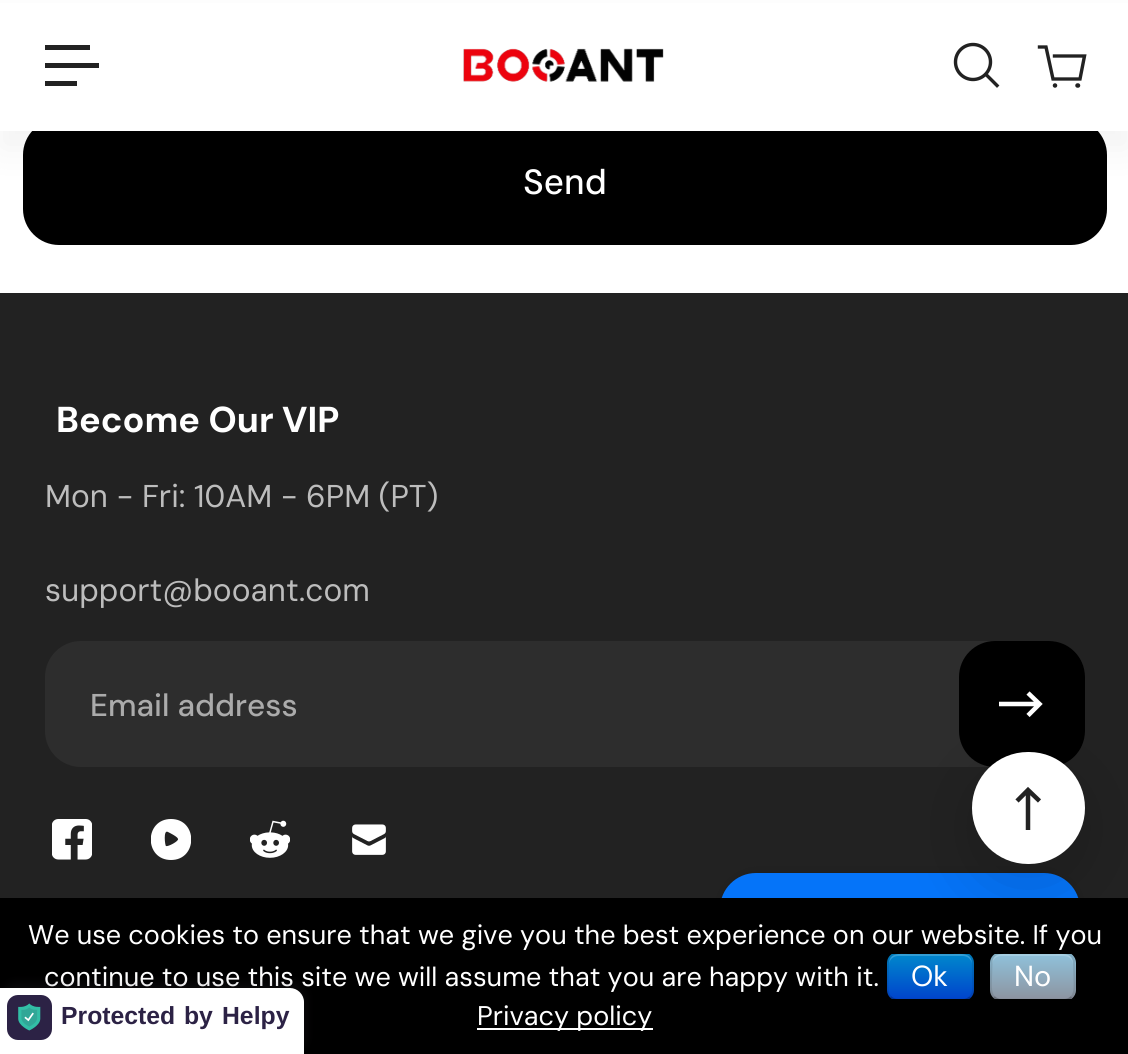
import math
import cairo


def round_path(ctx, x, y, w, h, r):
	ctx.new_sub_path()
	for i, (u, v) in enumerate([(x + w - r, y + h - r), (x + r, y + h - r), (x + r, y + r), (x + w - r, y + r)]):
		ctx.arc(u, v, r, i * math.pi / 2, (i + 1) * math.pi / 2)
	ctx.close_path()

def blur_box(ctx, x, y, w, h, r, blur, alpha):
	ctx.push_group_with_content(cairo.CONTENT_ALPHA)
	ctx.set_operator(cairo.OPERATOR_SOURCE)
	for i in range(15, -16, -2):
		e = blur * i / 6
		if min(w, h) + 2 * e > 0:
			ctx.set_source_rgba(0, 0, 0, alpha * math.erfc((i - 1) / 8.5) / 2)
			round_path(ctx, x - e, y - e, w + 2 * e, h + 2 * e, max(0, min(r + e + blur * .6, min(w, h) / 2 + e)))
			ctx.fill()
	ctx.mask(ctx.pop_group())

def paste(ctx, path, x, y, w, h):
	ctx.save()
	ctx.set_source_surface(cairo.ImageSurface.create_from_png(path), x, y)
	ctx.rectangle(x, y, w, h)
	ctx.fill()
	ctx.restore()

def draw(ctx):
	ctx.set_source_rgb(1, 1, 1)
	ctx.paint()
	ctx.set_source_rgb(0, 0, 0)
	round_path(ctx, 23, 119, 1084, 126, 36)
	ctx.fill()
	ctx.set_source_rgb(0, 0, 0)
	blur_box(ctx, 0, 18, 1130, 131, 0, 18, 0.05)
	ctx.set_source_rgb(1, 1, 1)
	ctx.rectangle(0, 3, 1128, 128)
	ctx.fill()
	ctx.set_source_rgb(0.133, 0.133, 0.133)
	ctx.rectangle(45, 45, 45, 5)
	ctx.rectangle(45, 63, 54, 5)
	ctx.rectangle(45, 81, 32, 5)
	ctx.fill()
	paste(ctx, 'media/1.png', 463, 48, 201, 34)
	ctx.arc(973, 62, 17.5, 0, 2 * math.pi)
	ctx.set_line_width(3.4)
	ctx.stroke()
	ctx.new_path()
	ctx.move_to(986, 74.5)
	ctx.line_to(997, 85.5)
	ctx.set_line_cap(cairo.LINE_CAP_SQUARE)
	ctx.set_line_join(cairo.LINE_JOIN_ROUND)
	ctx.stroke()
	ctx.new_path()
	ctx.move_to(1039.5, 47)
	ctx.line_to(1046, 47)
	ctx.line_to(1053, 79)
	ctx.line_to(1080, 79)
	ctx.line_to(1084.5, 56)
	ctx.line_to(1054.5, 56)
	ctx.set_line_join(cairo.LINE_JOIN_MITER)
	ctx.stroke()
	ctx.new_path()
	ctx.move_to(1055, 85.5)
	ctx.line_to(1055, 85.5)
	ctx.move_to(1077.5, 85.5)
	ctx.line_to(1078, 85.5)
	ctx.set_line_width(4.5)
	ctx.set_line_cap(cairo.LINE_CAP_ROUND)
	ctx.stroke()
	ctx.select_font_face('DM Sans Medium')
	ctx.set_font_size(35)
	ctx.set_source_rgb(1, 1, 1)
	ctx.move_to(523, 194)
	ctx.show_text('Send')
	ctx.set_source_rgb(0.133, 0.133, 0.133)
	ctx.rectangle(0, 293, 1128, 605)
	ctx.fill()
	ctx.select_font_face('DM Sans', cairo.FONT_SLANT_NORMAL, cairo.FONT_WEIGHT_BOLD)
	ctx.set_font_size(36)
	ctx.set_source_rgb(1, 1, 1)
	ctx.move_to(56, 432)
	ctx.show_text('Become Our VIP')
	ctx.select_font_face('DM Sans')
	ctx.set_font_size(31.5)
	ctx.set_source_rgb(0.741, 0.741, 0.741)
	ctx.move_to(45, 507)
	ctx.show_text('Mon - Fri: 10AM - 6PM (PT)')
	ctx.move_to(45, 601)
	ctx.show_text('support@booant.com')
	ctx.set_source_rgb(0.176, 0.176, 0.176)
	round_path(ctx, 46, 642, 1038, 124, 35)
	ctx.fill_preserve()
	ctx.set_line_width(2)
	ctx.set_line_cap(cairo.LINE_CAP_BUTT)
	ctx.stroke()
	ctx.select_font_face('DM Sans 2 Medium')
	ctx.set_source_rgb(0.671, 0.671, 0.671)
	ctx.move_to(90, 716)
	ctx.show_text('Email address')
	ctx.set_source_rgb(0, 0, 0)
	round_path(ctx, 959, 641, 126, 126, 36)
	ctx.fill()
	ctx.new_path()
	ctx.move_to(999, 704)
	ctx.line_to(1039.5, 704)
	ctx.move_to(1028, 693)
	ctx.line_to(1039.5, 704)
	ctx.line_to(1028, 715.5)
	ctx.set_source_rgb(1, 1, 1)
	ctx.set_line_width(4.5)
	ctx.stroke()
	paste(ctx, 'media/2.png', 52, 819, 40, 41)
	ctx.save()
	ctx.rectangle(151, 819, 40, 41)
	ctx.clip()
	ctx.set_fill_rule(cairo.FILL_RULE_EVEN_ODD)
	ctx.new_path()
	ctx.move_to(171, 819)
	ctx.curve_to(144, 819, 144, 860, 171, 860)
	ctx.curve_to(198, 860, 198, 819, 171, 819)
	ctx.close_path()
	ctx.move_to(168, 832)
	ctx.curve_to(163, 829, 165, 846, 166, 846)
	ctx.curve_to(168, 847, 179, 841, 178, 839)
	ctx.curve_to(178, 837, 170, 833, 168, 832)
	ctx.close_path()
	ctx.fill()
	ctx.restore()
	paste(ctx, 'media/3.png', 250, 820, 40, 38)
	paste(ctx, 'media/4.png', 352, 824, 34, 31)
	ctx.set_source_rgb(0, 0, 0)
	blur_box(ctx, 720, 873, 360, 135, 36, 5.5, 0.15)
	ctx.set_source_rgb(0.02, 0.455, 0.976)
	round_path(ctx, 720, 873, 360, 135, 36)
	ctx.fill()
	ctx.set_source_rgb(0, 0, 0)
	blur_box(ctx, 972, 772, 113, 112, 56, 36, 0.15)
	ctx.set_source_rgb(0, 0, 0)
	ctx.rectangle(0, 898, 1128, 156)
	ctx.fill()
	ctx.select_font_face('DM Sans 2')
	ctx.set_font_size(27)
	ctx.set_source_rgb(1, 1, 1)
	ctx.move_to(28, 944)
	ctx.show_text('We use cookies to ensure that we give you the best experience on our website. If you')
	ctx.move_to(44, 986)
	ctx.show_text('continue to use this site we will assume that you are happy with it.')
	ctx.save()
	round_path(ctx, 887, 952, 87, 49, 11)
	ctx.clip()
	gradient = cairo.LinearGradient(930, 954, 930, 999)
	gradient.add_color_stop_rgba(0, 0, 0.533, 0.8, 1)
	gradient.add_color_stop_rgba(1, 0, 0.267, 0.8, 1)
	ctx.set_source(gradient)
	ctx.rectangle(887, 954, 87, 45)
	ctx.fill()
	ctx.restore()
	ctx.set_source_rgba(1, 1, 1, 0.2)
	ctx.new_path()
	ctx.move_to(898, 956)
	ctx.line_to(963, 956)
	ctx.curve_to(968, 956, 972, 960, 972, 965)
	ctx.curve_to(972, 952, 962, 954, 952, 954)
	ctx.line_to(909, 954)
	ctx.curve_to(899, 954, 889, 952, 889, 965)
	ctx.curve_to(889, 960, 893, 956, 898, 956)
	ctx.close_path()
	ctx.fill()
	ctx.new_path()
	ctx.move_to(970, 997)
	ctx.curve_to(968.5, 999, 965.5, 1000, 963, 1000)
	ctx.line_to(898, 1000)
	ctx.curve_to(895, 1000, 892.5, 999, 890.5, 997)
	ctx.set_source_rgba(0, 0, 0, 0.25)
	ctx.set_line_width(2.2)
	ctx.stroke()
	ctx.new_path()
	ctx.move_to(890.5, 997)
	ctx.curve_to(886, 992.5, 887.5, 982.5, 887.5, 976.5)
	ctx.line_to(888, 961)
	ctx.curve_to(890, 951, 901, 953, 908.5, 953)
	ctx.line_to(952, 953)
	ctx.curve_to(959.5, 953, 971, 951, 973, 961)
	ctx.line_to(973, 976.5)
	ctx.curve_to(973, 982.5, 975, 992.5, 970, 997)
	ctx.set_source_rgba(0, 0, 0, 0.1)
	ctx.stroke()
	ctx.select_font_face('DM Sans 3')
	ctx.set_font_size(29)
	ctx.set_source_rgb(1, 1, 1)
	ctx.move_to(911, 986)
	ctx.show_text('Ok')
	ctx.save()
	round_path(ctx, 990, 952, 86, 49, 11)
	ctx.clip()
	gradient = cairo.LinearGradient(1033, 954, 1033, 999)
	gradient.add_color_stop_rgba(0, 0.561, 0.761, 0.859, 1)
	gradient.add_color_stop_rgba(1, 0.553, 0.58, 0.631, 1)
	ctx.set_source(gradient)
	ctx.rectangle(990, 954, 86, 45)
	ctx.fill()
	ctx.restore()
	ctx.set_source_rgba(1, 1, 1, 0.2)
	ctx.new_path()
	ctx.move_to(1001, 956)
	ctx.line_to(1064, 956)
	ctx.curve_to(1069, 956, 1073, 960, 1073, 965)
	ctx.curve_to(1073, 952, 1064, 954, 1054, 954)
	ctx.line_to(1012, 954)
	ctx.curve_to(1001, 954, 992, 952, 992, 965)
	ctx.curve_to(992, 960, 996, 956, 1001, 956)
	ctx.close_path()
	ctx.fill()
	ctx.new_path()
	ctx.move_to(1071.5, 997)
	ctx.curve_to(1069.5, 999, 1067, 1000, 1064, 1000)
	ctx.line_to(1001, 1000)
	ctx.curve_to(998.5, 1000, 996, 999, 994, 997)
	ctx.set_source_rgba(0, 0, 0, 0.25)
	ctx.stroke()
	ctx.new_path()
	ctx.move_to(994, 997)
	ctx.curve_to(989.5, 992.5, 991, 982.5, 991, 976.5)
	ctx.line_to(991.5, 961)
	ctx.curve_to(993.5, 951, 1004.5, 953, 1012, 953)
	ctx.line_to(1054, 953)
	ctx.curve_to(1061, 953, 1072, 951, 1074, 961)
	ctx.line_to(1074.5, 976.5)
	ctx.curve_to(1074.5, 982.5, 1076, 992.5, 1071.5, 997)
	ctx.set_source_rgba(0, 0, 0, 0.1)
	ctx.stroke()
	ctx.set_source_rgb(1, 1, 1)
	ctx.move_to(1014, 986)
	ctx.show_text('No')
	ctx.rectangle(477, 1028, 176, 2)
	ctx.fill()
	ctx.select_font_face('DM Sans 2')
	ctx.set_font_size(27)
	ctx.move_to(477, 1025)
	ctx.show_text('Privacy policy')
	round_path(ctx, 972, 752, 113, 112, 56)
	ctx.fill()
	ctx.new_path()
	ctx.move_to(1028, 830)
	ctx.line_to(1028, 790)
	ctx.move_to(1017, 801)
	ctx.line_to(1028, 790)
	ctx.line_to(1039.5, 801)
	ctx.set_source_rgb(0.133, 0.133, 0.133)
	ctx.set_line_width(4.5)
	ctx.stroke()
	ctx.set_source_rgb(0.251, 0.235, 0.263)
	blur_box(ctx, 2, 983, 304, 68, 14, 4.5, 0.16)
	ctx.set_source_rgb(1, 1, 1)
	ctx.new_path()
	ctx.move_to(0, 988)
	ctx.line_to(290, 988)
	ctx.curve_to(297.5, 988, 304, 994.5, 304, 1002)
	ctx.line_to(304, 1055)
	ctx.line_to(0, 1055)
	ctx.close_path()
	ctx.fill()
	ctx.set_source_rgb(0.173, 0.133, 0.271)
	round_path(ctx, 7, 995, 45, 45, 11)
	ctx.fill()
	paste(ctx, 'media/5.png', 18, 1003, 23, 28)
	ctx.select_font_face('Liberation Sans', cairo.FONT_SLANT_NORMAL, cairo.FONT_WEIGHT_BOLD)
	ctx.set_font_size(24.75)
	for x, y, s in [
		(61, 1024, 'Protected'),
		(184, 1024, 'by'),
		(222, 1024, 'Helpy'),
	]:
		ctx.move_to(x, y)
		ctx.show_text(s)


surface = cairo.ImageSurface(cairo.FORMAT_RGB24, 1128, 1054)
ctx = cairo.Context(surface)
options = cairo.FontOptions()
options.set_hint_metrics(cairo.HINT_METRICS_OFF)
options.set_hint_style(cairo.HINT_STYLE_NONE)
ctx.set_font_options(options)
ctx.set_miter_limit(4)
draw(ctx)
surface.write_to_png('image.png')
